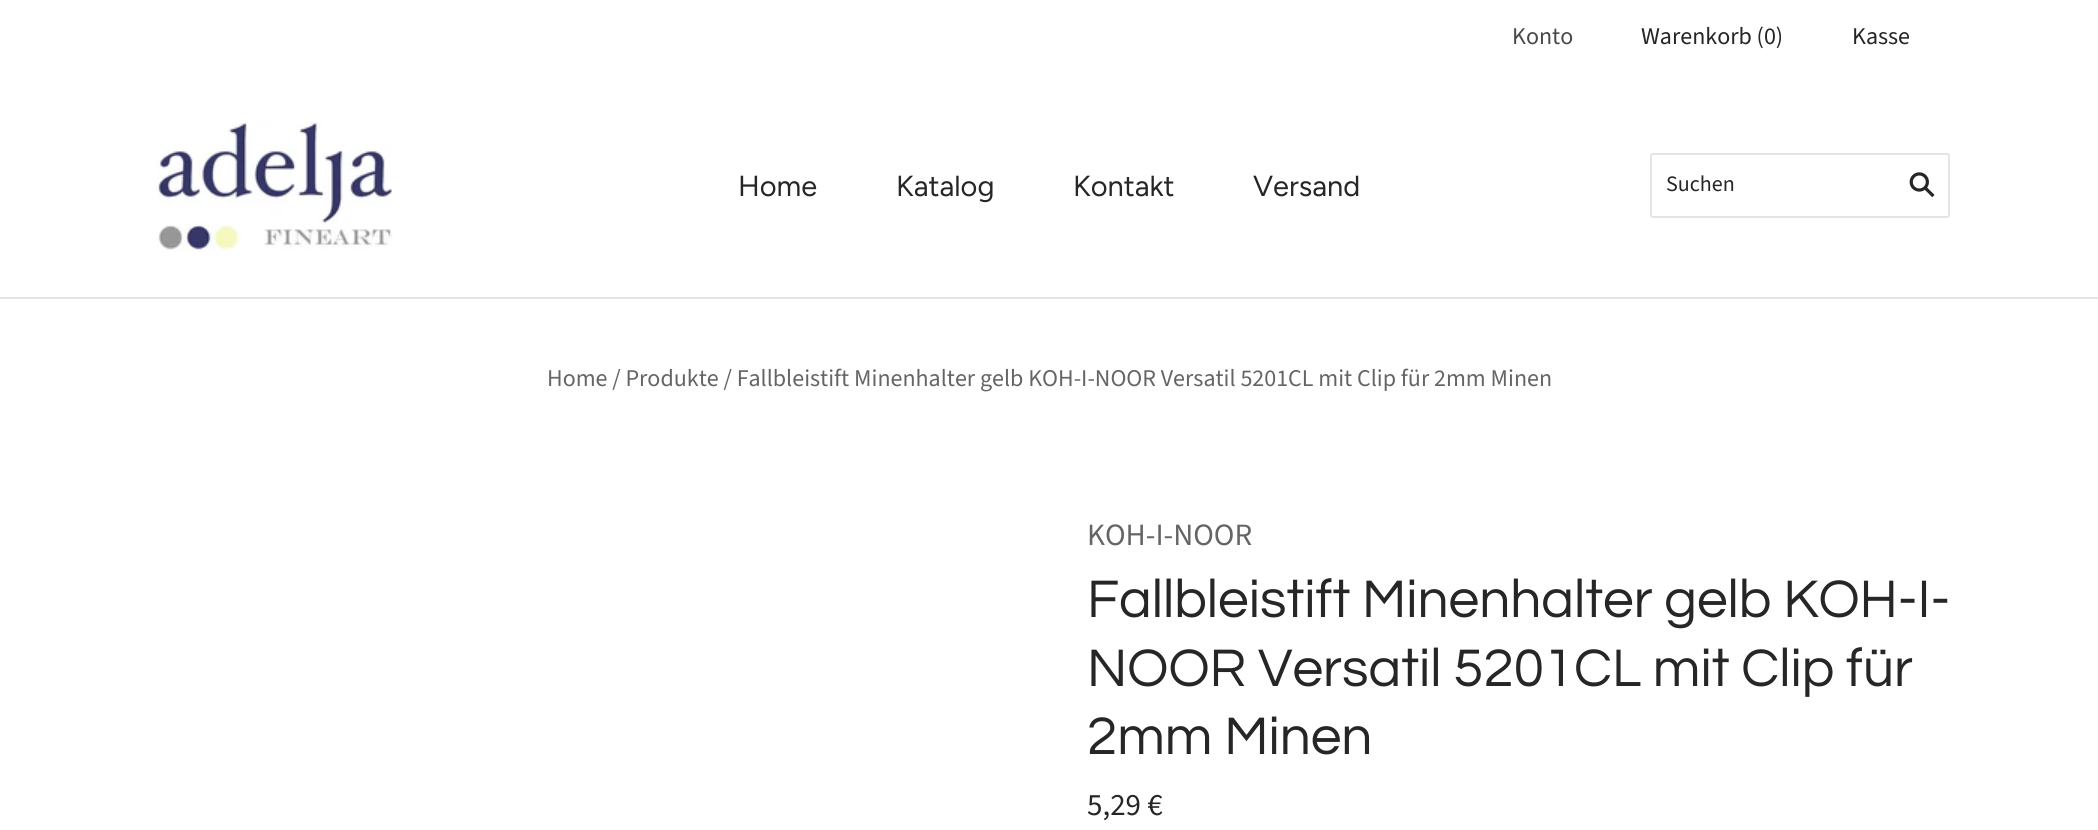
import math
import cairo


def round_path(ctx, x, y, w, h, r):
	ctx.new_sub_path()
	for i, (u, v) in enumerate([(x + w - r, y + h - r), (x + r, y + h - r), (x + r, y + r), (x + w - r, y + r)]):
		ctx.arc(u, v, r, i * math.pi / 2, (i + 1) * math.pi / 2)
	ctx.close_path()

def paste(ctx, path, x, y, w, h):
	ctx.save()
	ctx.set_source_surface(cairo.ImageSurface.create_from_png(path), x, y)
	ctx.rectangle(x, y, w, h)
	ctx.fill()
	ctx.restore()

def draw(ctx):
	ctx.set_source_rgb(1, 1, 1)
	ctx.paint()
	ctx.set_source_rgb(0.894, 0.894, 0.894)
	ctx.rectangle(0, 297, 2098, 2)
	ctx.fill()
	ctx.select_font_face('Source Sans Pro')
	ctx.set_font_size(24)
	ctx.set_source_rgb(0.286, 0.286, 0.286)
	ctx.move_to(1512, 44)
	ctx.show_text('Konto')
	ctx.set_source_rgb(0.149, 0.149, 0.149)
	ctx.move_to(1641, 44)
	ctx.show_text('Warenkorb (0)')
	ctx.move_to(1852, 44)
	ctx.show_text('Kasse')
	paste(ctx, 'media/1.png', 156, 122, 237, 130)
	ctx.select_font_face('Figtree')
	ctx.set_font_size(29)
	for x, y, s in [
		(738, 196, 'Home'),
		(896, 196, 'Katalog'),
		(1073, 196, 'Kontakt'),
		(1253, 196, 'Versand'),
	]:
		ctx.move_to(x, y)
		ctx.show_text(s)
	round_path(ctx, 1651, 154, 298, 63, 2)
	ctx.set_source_rgb(0.894, 0.894, 0.894)
	ctx.stroke()
	ctx.select_font_face('Source Sans Pro')
	ctx.set_font_size(22)
	ctx.set_source_rgb(0.149, 0.149, 0.149)
	ctx.move_to(1666, 191)
	ctx.show_text('Suchen')
	paste(ctx, 'media/2.png', 1909, 172, 26, 26)
	ctx.set_font_size(24)
	ctx.set_source_rgb(0.396, 0.396, 0.396)
	ctx.move_to(547, 386)
	ctx.show_text('Home / Produkte / Fallbleistift Minenhalter gelb KOH-I-NOOR Versatil 5201CL mit Clip für 2mm Minen')
	ctx.set_font_size(31)
	ctx.move_to(1087, 545)
	ctx.show_text('KOH-I-NOOR')
	ctx.select_font_face('Questrial')
	ctx.set_font_size(54.9)
	ctx.set_source_rgb(0.149, 0.149, 0.149)
	for x, y, s in [
		(1087, 617, 'Fallbleistift Minenhalter gelb KOH-I-'),
		(1087, 686, 'NOOR Versatil 5201CL mit Clip für'),
		(1087, 754, '2mm Minen'),
	]:
		ctx.move_to(x, y)
		ctx.show_text(s)
	ctx.select_font_face('Source Sans Pro')
	ctx.set_font_size(31)
	ctx.move_to(1087, 815)
	ctx.show_text('5,29 €')


surface = cairo.ImageSurface(cairo.FORMAT_RGB24, 2098, 830)
ctx = cairo.Context(surface)
options = cairo.FontOptions()
options.set_hint_metrics(cairo.HINT_METRICS_OFF)
options.set_hint_style(cairo.HINT_STYLE_NONE)
ctx.set_font_options(options)
ctx.set_miter_limit(4)
draw(ctx)
surface.write_to_png('image.png')
